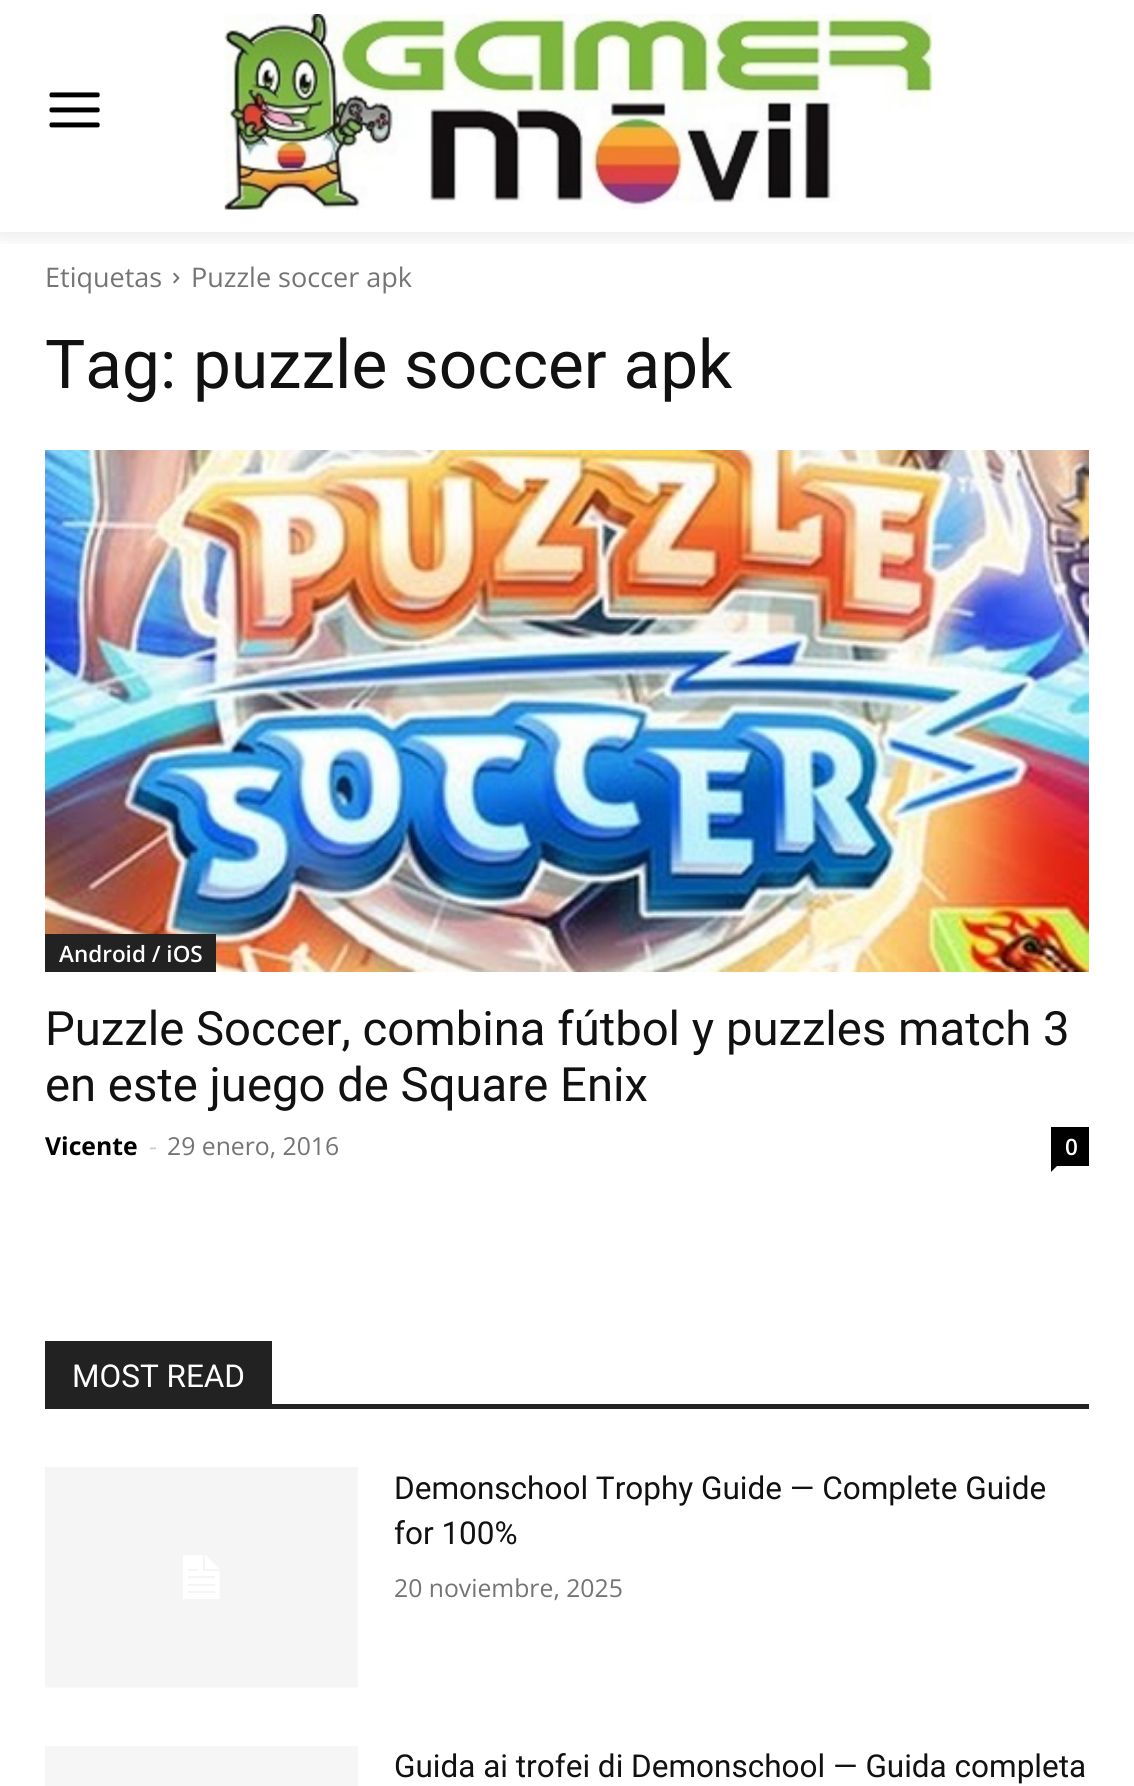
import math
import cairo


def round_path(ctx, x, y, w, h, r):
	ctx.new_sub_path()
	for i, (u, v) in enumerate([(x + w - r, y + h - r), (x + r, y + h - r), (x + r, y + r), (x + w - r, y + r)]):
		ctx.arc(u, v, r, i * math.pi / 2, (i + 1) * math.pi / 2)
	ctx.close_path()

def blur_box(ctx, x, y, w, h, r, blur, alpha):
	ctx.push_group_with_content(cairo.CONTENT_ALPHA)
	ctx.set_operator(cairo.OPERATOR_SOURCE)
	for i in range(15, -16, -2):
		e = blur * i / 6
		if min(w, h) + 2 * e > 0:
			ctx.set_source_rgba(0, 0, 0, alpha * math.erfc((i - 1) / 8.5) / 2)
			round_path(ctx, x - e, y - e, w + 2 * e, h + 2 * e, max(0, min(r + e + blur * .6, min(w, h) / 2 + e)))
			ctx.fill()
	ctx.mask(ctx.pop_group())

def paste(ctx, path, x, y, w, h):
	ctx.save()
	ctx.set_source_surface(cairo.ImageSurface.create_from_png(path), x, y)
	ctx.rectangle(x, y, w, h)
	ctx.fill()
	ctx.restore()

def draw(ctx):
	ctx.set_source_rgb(1, 1, 1)
	ctx.paint()
	paste(ctx, 'media/1.png', 49, 92, 51, 36)
	paste(ctx, 'media/2.png', 224, 14, 708, 196)
	ctx.save()
	ctx.rectangle(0, 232, 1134, 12)
	ctx.clip()
	ctx.set_source_rgb(0, 0, 0)
	blur_box(ctx, 0, 5, 1134, 231, 0, 11, 0.09)
	ctx.restore()
	ctx.select_font_face('Open Sans')
	ctx.set_font_size(27)
	ctx.set_source_rgb(0.455, 0.455, 0.455)
	ctx.move_to(45, 287)
	ctx.show_text('Etiquetas')
	paste(ctx, 'media/3.png', 173, 272, 7, 12)
	ctx.move_to(191, 287)
	ctx.show_text('Puzzle soccer apk')
	ctx.select_font_face('Roboto')
	ctx.set_font_size(67.5)
	ctx.set_source_rgb(0.067, 0.067, 0.067)
	ctx.move_to(45, 388)
	ctx.show_text('Tag: puzzle soccer apk')
	paste(ctx, 'media/4.png', 45, 450, 1044, 522)
	ctx.set_source_rgb(0.133, 0.133, 0.133)
	ctx.rectangle(45, 934, 171, 38)
	ctx.fill()
	ctx.select_font_face('Open Sans SemiBold')
	ctx.set_font_size(22.5)
	ctx.set_source_rgb(1, 1, 1)
	ctx.move_to(59, 962)
	ctx.show_text('Android / iOS')
	ctx.select_font_face('Roboto')
	ctx.set_font_size(47.25)
	ctx.set_source_rgb(0.067, 0.067, 0.067)
	ctx.move_to(45, 1045)
	ctx.show_text('Puzzle Soccer, combina fútbol y puzzles match 3')
	ctx.move_to(45, 1101)
	ctx.show_text('en este juego de Square Enix')
	ctx.select_font_face('Open Sans', cairo.FONT_SLANT_NORMAL, cairo.FONT_WEIGHT_BOLD)
	ctx.set_font_size(24.75)
	ctx.set_source_rgb(0, 0, 0)
	ctx.move_to(45, 1155)
	ctx.show_text('Vicente')
	ctx.select_font_face('Open Sans')
	ctx.set_source_rgb(0.8, 0.8, 0.8)
	ctx.move_to(149, 1155)
	ctx.show_text('-')
	ctx.set_source_rgb(0.455, 0.455, 0.455)
	ctx.move_to(167, 1155)
	ctx.show_text('29 enero, 2016')
	ctx.set_source_rgb(0, 0, 0)
	ctx.rectangle(1051, 1127, 38, 39)
	ctx.fill()
	ctx.select_font_face('Open Sans SemiBold')
	ctx.set_font_size(22.5)
	ctx.set_source_rgb(1, 1, 1)
	ctx.move_to(1065, 1155)
	ctx.show_text('0')
	ctx.set_source_rgb(0, 0, 0)
	ctx.new_path()
	ctx.move_to(1051, 1165.5)
	ctx.line_to(1057.5, 1165.5)
	ctx.line_to(1051, 1172)
	ctx.close_path()
	ctx.fill()
	ctx.set_source_rgb(0.133, 0.133, 0.133)
	ctx.rectangle(45, 1404, 1044, 5)
	ctx.fill()
	ctx.rectangle(45, 1341, 227, 63)
	ctx.fill()
	ctx.select_font_face('Roboto')
	ctx.set_font_size(31.5)
	ctx.set_source_rgb(1, 1, 1)
	ctx.move_to(72, 1387)
	ctx.show_text('MOST READ')
	paste(ctx, 'media/5.png', 45, 1467, 313, 221)
	ctx.set_source_rgb(0.067, 0.067, 0.067)
	ctx.move_to(394, 1499)
	ctx.show_text('Demonschool Trophy Guide — Complete Guide')
	ctx.move_to(394, 1544)
	ctx.show_text('for 100%')
	ctx.select_font_face('Open Sans')
	ctx.set_font_size(24.75)
	ctx.set_source_rgb(0.455, 0.455, 0.455)
	ctx.move_to(394, 1597)
	ctx.show_text('20 noviembre, 2025')
	ctx.set_source_rgb(0.961, 0.961, 0.961)
	ctx.rectangle(45, 1746, 313, 40)
	ctx.fill()
	ctx.select_font_face('Roboto')
	ctx.set_font_size(31.5)
	ctx.set_source_rgb(0.067, 0.067, 0.067)
	ctx.move_to(394, 1777)
	ctx.show_text('Guida ai trofei di Demonschool — Guida completa')


surface = cairo.ImageSurface(cairo.FORMAT_RGB24, 1134, 1786)
ctx = cairo.Context(surface)
options = cairo.FontOptions()
options.set_hint_metrics(cairo.HINT_METRICS_OFF)
options.set_hint_style(cairo.HINT_STYLE_NONE)
ctx.set_font_options(options)
ctx.set_miter_limit(4)
draw(ctx)
surface.write_to_png('image.png')
